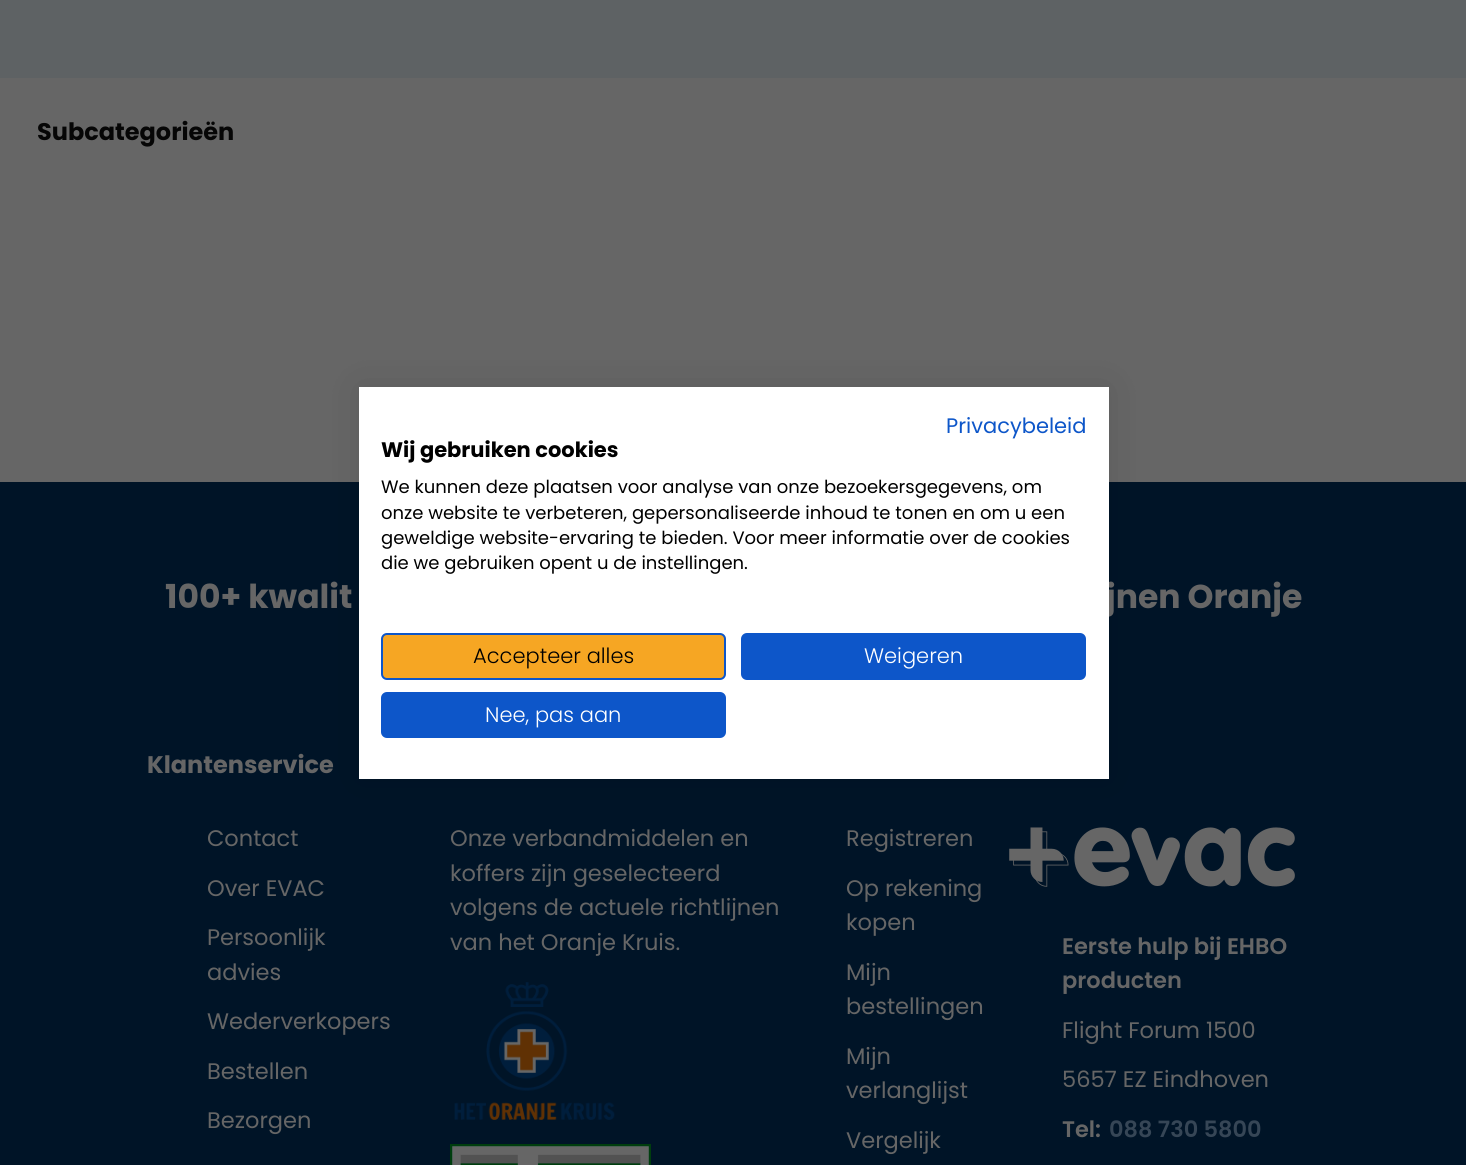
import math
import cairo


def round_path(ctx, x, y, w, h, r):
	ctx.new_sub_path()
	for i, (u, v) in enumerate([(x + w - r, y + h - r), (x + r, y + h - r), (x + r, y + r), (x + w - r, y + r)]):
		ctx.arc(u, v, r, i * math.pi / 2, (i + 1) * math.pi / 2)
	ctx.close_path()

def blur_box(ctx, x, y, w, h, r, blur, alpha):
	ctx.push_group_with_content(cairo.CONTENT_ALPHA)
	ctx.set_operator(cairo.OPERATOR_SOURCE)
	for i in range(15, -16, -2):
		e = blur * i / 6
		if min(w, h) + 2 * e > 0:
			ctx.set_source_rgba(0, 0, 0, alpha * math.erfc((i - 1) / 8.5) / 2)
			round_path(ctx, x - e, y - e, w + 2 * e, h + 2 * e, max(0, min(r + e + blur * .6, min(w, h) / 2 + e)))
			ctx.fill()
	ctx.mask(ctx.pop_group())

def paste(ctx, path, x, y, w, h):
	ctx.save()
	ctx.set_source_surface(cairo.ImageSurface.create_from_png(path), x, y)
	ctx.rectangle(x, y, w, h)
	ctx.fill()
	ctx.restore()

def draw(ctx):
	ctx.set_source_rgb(0.4, 0.4, 0.4)
	ctx.paint()
	ctx.set_source_rgb(0.369, 0.384, 0.392)
	ctx.rectangle(0, 0, 1466, 78)
	ctx.fill()
	ctx.select_font_face('Poppins', cairo.FONT_SLANT_NORMAL, cairo.FONT_WEIGHT_BOLD)
	ctx.set_font_size(24)
	ctx.set_source_rgb(0.027, 0.027, 0.027)
	ctx.move_to(37, 140)
	ctx.show_text('Subcategorieën')
	ctx.set_source_rgb(0, 0.082, 0.153)
	ctx.rectangle(0, 482, 1466, 683)
	ctx.fill()
	paste(ctx, 'media/3.png', 1009, 827, 286, 60)
	ctx.set_source_rgb(0, 0, 0)
	blur_box(ctx, 359, 387, 750, 392, 0, 18, 0.1)
	ctx.set_font_size(33)
	ctx.set_source_rgb(0.4, 0.4, 0.4)
	ctx.move_to(1106, 608)
	ctx.show_text('jnen Oranje')
	ctx.set_source_rgb(1, 1, 1)
	ctx.rectangle(359, 387, 750, 392)
	ctx.fill()
	ctx.select_font_face('Poppins')
	ctx.set_font_size(21)
	ctx.set_source_rgb(0.051, 0.337, 0.788)
	ctx.move_to(946, 433)
	ctx.show_text('Privacybeleid')
	ctx.select_font_face('Poppins', cairo.FONT_SLANT_NORMAL, cairo.FONT_WEIGHT_BOLD)
	ctx.set_source_rgb(0, 0, 0)
	ctx.move_to(381, 457)
	ctx.show_text('Wij gebruiken cookies')
	ctx.select_font_face('Poppins')
	ctx.set_font_size(18)
	for x, y, s in [
		(381, 493, 'We kunnen deze plaatsen voor analyse van onze bezoekersgegevens, om'),
		(381, 519, 'onze website te verbeteren, gepersonaliseerde inhoud te tonen en om u een'),
		(381, 544, 'geweldige website-ervaring te bieden. Voor meer informatie over de cookies'),
		(381, 569, 'die we gebruiken opent u de instellingen.'),
	]:
		ctx.move_to(x, y)
		ctx.show_text(s)
	ctx.set_source_rgb(0.961, 0.651, 0.137)
	round_path(ctx, 382, 634, 343, 45, 5)
	ctx.fill_preserve()
	ctx.set_source_rgb(0.051, 0.337, 0.788)
	ctx.stroke()
	ctx.select_font_face('Poppins Light')
	ctx.set_font_size(21)
	ctx.set_source_rgb(0, 0, 0)
	ctx.move_to(473, 663)
	ctx.show_text('Accepteer alles')
	ctx.set_source_rgb(0.051, 0.337, 0.788)
	round_path(ctx, 742, 634, 343, 45, 5)
	ctx.fill_preserve()
	ctx.stroke()
	ctx.set_source_rgb(1, 1, 1)
	ctx.move_to(864, 663)
	ctx.show_text('Weigeren')
	ctx.set_source_rgb(0.051, 0.337, 0.788)
	round_path(ctx, 382, 693, 343, 44, 5)
	ctx.fill_preserve()
	ctx.stroke()
	ctx.set_source_rgb(1, 1, 1)
	ctx.move_to(485, 722)
	ctx.show_text('Nee, pas aan')
	ctx.select_font_face('Poppins', cairo.FONT_SLANT_NORMAL, cairo.FONT_WEIGHT_BOLD)
	ctx.set_font_size(33)
	ctx.set_source_rgb(0.4, 0.4, 0.4)
	ctx.move_to(165, 608)
	ctx.show_text('100+ kwalit')
	ctx.set_font_size(24)
	ctx.move_to(147, 773)
	ctx.show_text('Klantenservice')
	ctx.select_font_face('Poppins')
	ctx.set_font_size(22.5)
	for x, y, s in [
		(207, 846, 'Contact'),
		(207, 896, 'Over EVAC'),
		(207, 945, 'Persoonlijk'),
		(207, 980, 'advies'),
		(207, 1029, 'Wederverkopers'),
		(207, 1079, 'Bestellen'),
		(207, 1128, 'Bezorgen'),
		(450, 846, 'Onze verbandmiddelen en'),
		(450, 881, 'koffers zijn geselecteerd'),
		(450, 915, 'volgens de actuele richtlijnen'),
		(450, 950, 'van het Oranje Kruis.'),
	]:
		ctx.move_to(x, y)
		ctx.show_text(s)
	paste(ctx, 'media/1.png', 454, 982, 161, 138)
	paste(ctx, 'media/2.png', 450, 1144, 201, 21)
	for x, y, s in [
		(846, 846, 'Registreren'),
		(846, 896, 'Op rekening'),
		(846, 930, 'kopen'),
		(846, 980, 'Mijn'),
		(846, 1014, 'bestellingen'),
		(846, 1064, 'Mijn'),
		(846, 1098, 'verlanglijst'),
		(846, 1148, 'Vergelijk'),
	]:
		ctx.move_to(x, y)
		ctx.show_text(s)
	ctx.select_font_face('Poppins SemiBold')
	ctx.move_to(1062, 954)
	ctx.show_text('Eerste hulp bij EHBO')
	ctx.move_to(1062, 988)
	ctx.show_text('producten')
	ctx.select_font_face('Poppins')
	ctx.move_to(1062, 1038)
	ctx.show_text('Flight Forum 1500')
	ctx.move_to(1062, 1087)
	ctx.show_text('5657 EZ Eindhoven')
	ctx.select_font_face('Poppins SemiBold')
	ctx.move_to(1062, 1137)
	ctx.show_text('Tel:')
	ctx.set_source_rgb(0.212, 0.275, 0.337)
	ctx.move_to(1109, 1137)
	ctx.show_text('088 730 5800')


surface = cairo.ImageSurface(cairo.FORMAT_RGB24, 1466, 1165)
ctx = cairo.Context(surface)
options = cairo.FontOptions()
options.set_hint_metrics(cairo.HINT_METRICS_OFF)
options.set_hint_style(cairo.HINT_STYLE_NONE)
ctx.set_font_options(options)
ctx.set_miter_limit(4)
draw(ctx)
surface.write_to_png('image.png')
